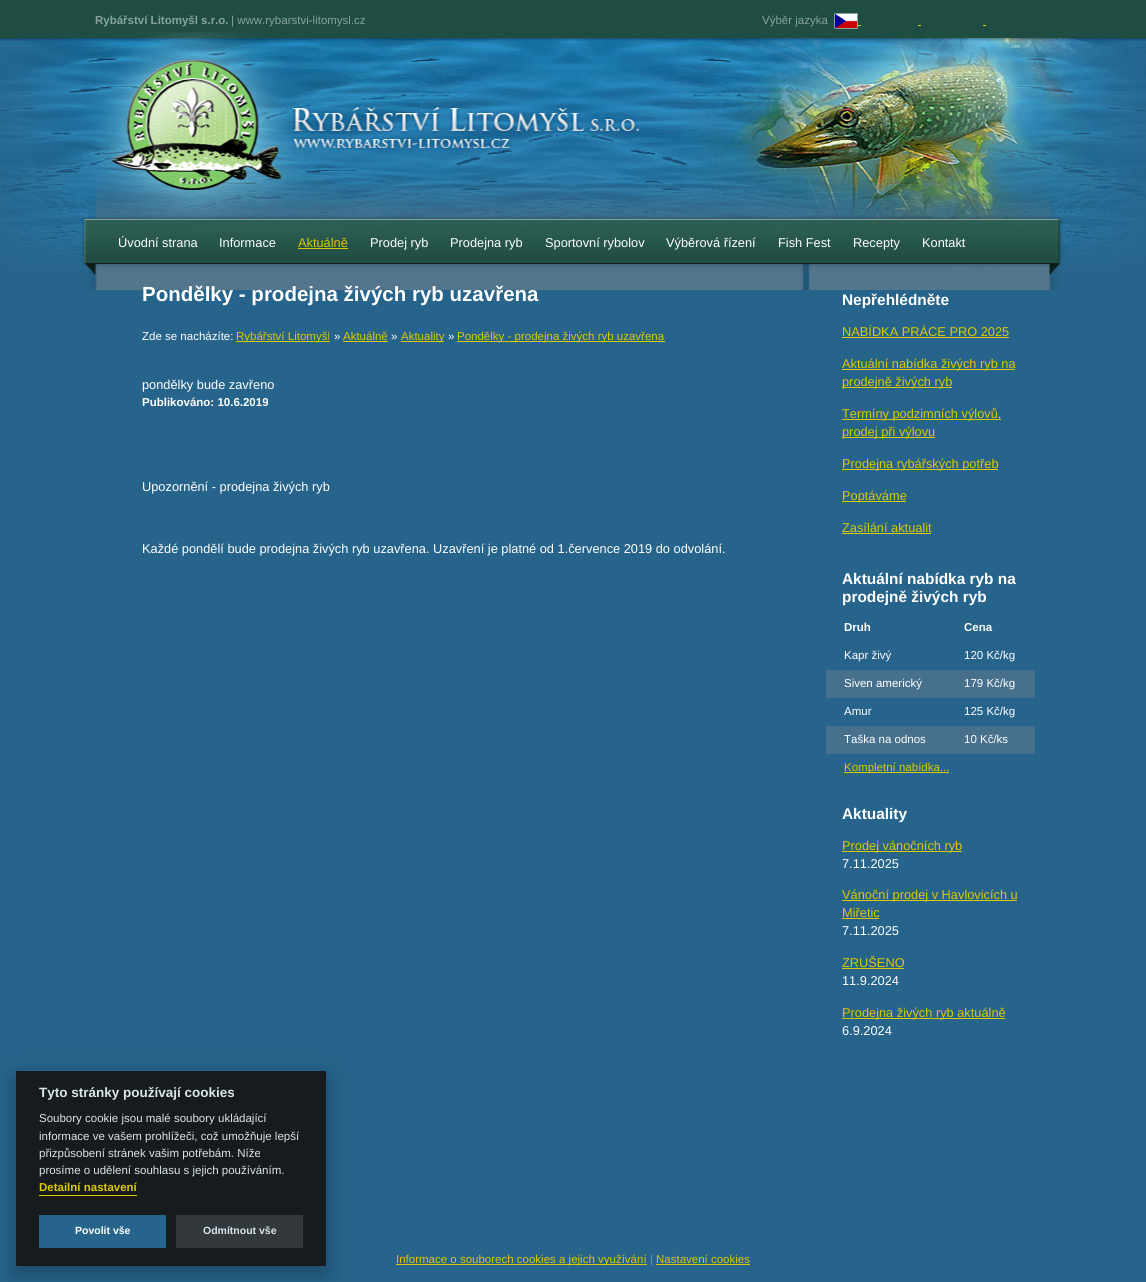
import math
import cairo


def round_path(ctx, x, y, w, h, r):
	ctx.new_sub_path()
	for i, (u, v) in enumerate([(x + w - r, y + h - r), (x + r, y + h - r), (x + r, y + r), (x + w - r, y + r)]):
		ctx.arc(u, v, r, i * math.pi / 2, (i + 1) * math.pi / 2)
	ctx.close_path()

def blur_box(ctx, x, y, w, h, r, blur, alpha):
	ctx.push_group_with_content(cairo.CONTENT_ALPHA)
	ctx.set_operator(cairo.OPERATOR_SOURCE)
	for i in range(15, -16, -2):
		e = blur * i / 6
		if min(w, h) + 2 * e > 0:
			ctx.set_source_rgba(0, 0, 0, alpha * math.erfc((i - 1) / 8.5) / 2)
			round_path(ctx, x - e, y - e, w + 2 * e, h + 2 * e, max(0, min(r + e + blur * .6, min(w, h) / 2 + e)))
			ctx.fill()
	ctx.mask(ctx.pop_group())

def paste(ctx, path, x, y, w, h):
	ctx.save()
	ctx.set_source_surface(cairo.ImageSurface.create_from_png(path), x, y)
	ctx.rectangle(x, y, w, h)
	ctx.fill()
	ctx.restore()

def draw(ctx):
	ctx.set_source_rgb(0.149, 0.392, 0.545)
	ctx.paint()
	paste(ctx, 'media/1.png', 0, 0, 1146, 290)
	ctx.select_font_face('Liberation Sans', cairo.FONT_SLANT_NORMAL, cairo.FONT_WEIGHT_BOLD)
	ctx.set_font_size(11.5)
	ctx.set_source_rgb(0.533, 0.639, 0.612)
	ctx.move_to(95, 24)
	ctx.show_text('Rybářství Litomyšl s.r.o.')
	ctx.select_font_face('Liberation Sans')
	ctx.move_to(231, 24)
	ctx.show_text('| www.rybarstvi-litomysl.cz')
	ctx.move_to(762, 24)
	ctx.show_text('Výběr jazyka')
	paste(ctx, 'media/2.png', 834, 13, 24, 16)
	ctx.set_source_rgb(0.859, 0.784, 0)
	ctx.rectangle(858, 25, 3, 1)
	ctx.rectangle(918, 25, 3, 1)
	ctx.rectangle(983, 25, 3, 1)
	ctx.fill()
	ctx.set_font_size(12.8)
	ctx.set_source_rgb(1, 1, 1)
	ctx.move_to(118, 247)
	ctx.show_text('Úvodní strana')
	ctx.move_to(219, 247)
	ctx.show_text('Informace')
	ctx.set_source_rgb(0.859, 0.784, 0)
	ctx.move_to(298, 247)
	ctx.show_text('Aktuálně')
	ctx.rectangle(298, 248, 50, 1)
	ctx.fill()
	ctx.set_source_rgb(1, 1, 1)
	for x, y, s in [
		(370, 247, 'Prodej ryb'),
		(450, 247, 'Prodejna ryb'),
		(545, 247, 'Sportovní rybolov'),
		(666, 247, 'Výběrová řízení'),
		(778, 247, 'Fish Fest'),
		(853, 247, 'Recepty'),
		(922, 247, 'Kontakt'),
	]:
		ctx.move_to(x, y)
		ctx.show_text(s)
	ctx.select_font_face('Liberation Sans', cairo.FONT_SLANT_NORMAL, cairo.FONT_WEIGHT_BOLD)
	ctx.set_font_size(20.5)
	ctx.move_to(142, 301)
	ctx.show_text('Pondělky - prodejna živých ryb uzavřena')
	ctx.select_font_face('Liberation Sans')
	ctx.set_font_size(11.5)
	ctx.move_to(142, 340)
	ctx.show_text('Zde se nacházíte:')
	ctx.set_source_rgb(0.859, 0.784, 0)
	ctx.rectangle(236, 341, 94, 1)
	ctx.fill()
	ctx.move_to(236, 340)
	ctx.show_text('Rybářství Litomyšl')
	ctx.set_source_rgb(1, 1, 1)
	ctx.move_to(334, 340)
	ctx.show_text('»')
	ctx.set_source_rgb(0.859, 0.784, 0)
	ctx.move_to(343, 340)
	ctx.show_text('Aktuálně')
	ctx.rectangle(343, 341, 45, 1)
	ctx.fill()
	ctx.set_source_rgb(1, 1, 1)
	ctx.move_to(391, 340)
	ctx.show_text('»')
	ctx.set_source_rgb(0.859, 0.784, 0)
	ctx.rectangle(401, 341, 43, 1)
	ctx.fill()
	ctx.move_to(401, 340)
	ctx.show_text('Aktuality')
	ctx.set_source_rgb(1, 1, 1)
	ctx.move_to(448, 340)
	ctx.show_text('»')
	ctx.set_source_rgb(0.859, 0.784, 0)
	ctx.rectangle(457, 341, 208, 1)
	ctx.fill()
	ctx.move_to(457, 340)
	ctx.show_text('Pondělky - prodejna živých ryb uzavřena')
	ctx.set_font_size(12.8)
	ctx.set_source_rgb(1, 1, 1)
	ctx.move_to(142, 389)
	ctx.show_text('pondělky bude zavřeno')
	ctx.select_font_face('Liberation Sans', cairo.FONT_SLANT_NORMAL, cairo.FONT_WEIGHT_BOLD)
	ctx.set_font_size(11.5)
	ctx.move_to(142, 406)
	ctx.show_text('Publikováno: 10.6.2019')
	ctx.select_font_face('Liberation Sans')
	ctx.set_font_size(12.8)
	ctx.move_to(142, 491)
	ctx.show_text('Upozornění - prodejna živých ryb')
	ctx.move_to(142, 553)
	ctx.show_text('Každé pondělí bude prodejna živých ryb uzavřena. Uzavření je platné od 1.července 2019 do odvolání.')
	ctx.select_font_face('Liberation Sans', cairo.FONT_SLANT_NORMAL, cairo.FONT_WEIGHT_BOLD)
	ctx.set_font_size(15.4)
	ctx.move_to(842, 305)
	ctx.show_text('Nepřehlédněte')
	ctx.select_font_face('Liberation Sans')
	ctx.set_font_size(12.8)
	ctx.set_source_rgb(0.859, 0.784, 0)
	ctx.move_to(842, 336)
	ctx.show_text('NABÍDKA PRÁCE PRO 2025')
	ctx.rectangle(842, 337, 167, 1)
	ctx.fill()
	ctx.rectangle(842, 369, 173, 1)
	ctx.fill()
	ctx.move_to(842, 368)
	ctx.show_text('Aktuální nabídka živých ryb na')
	ctx.rectangle(842, 387, 110, 1)
	ctx.fill()
	ctx.move_to(842, 386)
	ctx.show_text('prodejně živých ryb')
	ctx.rectangle(842, 419, 159, 1)
	ctx.fill()
	ctx.move_to(842, 418)
	ctx.show_text('Termíny podzimních výlovů,')
	ctx.rectangle(842, 437, 93, 1)
	ctx.fill()
	ctx.move_to(842, 436)
	ctx.show_text('prodej při výlovu')
	ctx.rectangle(842, 469, 156, 1)
	ctx.fill()
	ctx.move_to(842, 468)
	ctx.show_text('Prodejna rybářských potřeb')
	ctx.rectangle(842, 501, 64, 1)
	ctx.fill()
	ctx.move_to(842, 500)
	ctx.show_text('Poptáváme')
	ctx.move_to(842, 532)
	ctx.show_text('Zasílání aktualit')
	ctx.rectangle(842, 533, 89, 1)
	ctx.fill()
	ctx.select_font_face('Liberation Sans', cairo.FONT_SLANT_NORMAL, cairo.FONT_WEIGHT_BOLD)
	ctx.set_font_size(15.4)
	ctx.set_source_rgb(1, 1, 1)
	ctx.move_to(842, 584)
	ctx.show_text('Aktuální nabídka ryb na')
	ctx.move_to(842, 602)
	ctx.show_text('prodejně živých ryb')
	ctx.set_font_size(11.5)
	ctx.move_to(844, 631)
	ctx.show_text('Druh')
	ctx.move_to(964, 631)
	ctx.show_text('Cena')
	ctx.select_font_face('Liberation Sans')
	ctx.move_to(844, 659)
	ctx.show_text('Kapr živý')
	ctx.move_to(964, 659)
	ctx.show_text('120 Kč/kg')
	ctx.set_source_rgb(0.278, 0.439, 0.549)
	ctx.rectangle(826, 670, 209, 28)
	ctx.fill()
	ctx.set_source_rgb(1, 1, 1)
	for x, y, s in [
		(844, 687, 'Siven americký'),
		(964, 687, '179 Kč/kg'),
		(844, 715, 'Amur'),
		(964, 715, '125 Kč/kg'),
	]:
		ctx.move_to(x, y)
		ctx.show_text(s)
	ctx.set_source_rgb(0.278, 0.439, 0.549)
	ctx.rectangle(826, 726, 209, 28)
	ctx.fill()
	ctx.set_source_rgb(1, 1, 1)
	ctx.move_to(844, 743)
	ctx.show_text('Taška na odnos')
	ctx.move_to(964, 743)
	ctx.show_text('10 Kč/ks')
	ctx.set_source_rgb(0.859, 0.784, 0)
	ctx.rectangle(844, 772, 105, 1)
	ctx.fill()
	ctx.move_to(844, 771)
	ctx.show_text('Kompletní nabídka...')
	ctx.select_font_face('Liberation Sans', cairo.FONT_SLANT_NORMAL, cairo.FONT_WEIGHT_BOLD)
	ctx.set_font_size(15.4)
	ctx.set_source_rgb(1, 1, 1)
	ctx.move_to(842, 819)
	ctx.show_text('Aktuality')
	ctx.set_source_rgb(0.859, 0.784, 0)
	ctx.rectangle(842, 851, 120, 1)
	ctx.fill()
	ctx.select_font_face('Liberation Sans')
	ctx.set_font_size(12.8)
	ctx.move_to(842, 850)
	ctx.show_text('Prodej vánočních ryb')
	ctx.set_source_rgb(1, 1, 1)
	ctx.move_to(842, 868)
	ctx.show_text('7.11.2025')
	ctx.set_source_rgb(0.859, 0.784, 0)
	ctx.rectangle(842, 900, 175, 1)
	ctx.fill()
	ctx.move_to(842, 899)
	ctx.show_text('Vánoční prodej v Havlovicích u')
	ctx.move_to(842, 917)
	ctx.show_text('Miřetic')
	ctx.rectangle(842, 918, 37, 1)
	ctx.fill()
	ctx.set_source_rgb(1, 1, 1)
	ctx.move_to(842, 935)
	ctx.show_text('7.11.2025')
	ctx.set_source_rgb(0.859, 0.784, 0)
	ctx.move_to(842, 967)
	ctx.show_text('ZRUŠENO')
	ctx.rectangle(842, 968, 62, 1)
	ctx.fill()
	ctx.set_source_rgb(1, 1, 1)
	ctx.move_to(842, 985)
	ctx.show_text('11.9.2024')
	ctx.set_source_rgb(0.859, 0.784, 0)
	ctx.rectangle(842, 1018, 163, 1)
	ctx.fill()
	ctx.move_to(842, 1017)
	ctx.show_text('Prodejna živých ryb aktuálně')
	ctx.set_source_rgb(1, 1, 1)
	ctx.move_to(842, 1035)
	ctx.show_text('6.9.2024')
	ctx.set_source_rgb(0.008, 0.008, 0.012)
	blur_box(ctx, 16, 1079, 310, 195, 0, 12, 0.28)
	ctx.set_source_rgb(0.094, 0.106, 0.114)
	ctx.rectangle(16, 1071, 310, 195)
	ctx.fill()
	ctx.select_font_face('Liberation Sans', cairo.FONT_SLANT_NORMAL, cairo.FONT_WEIGHT_BOLD)
	ctx.set_font_size(13.5)
	ctx.set_source_rgb(0.847, 0.898, 0.918)
	ctx.move_to(39, 1097)
	ctx.show_text('Tyto stránky používají cookies')
	ctx.select_font_face('Liberation Sans')
	ctx.set_font_size(11.5)
	for x, y, s in [
		(39, 1122, 'Soubory cookie jsou malé soubory ukládající'),
		(39, 1140, 'informace ve vašem prohlížeči, což umožňuje lepší'),
		(39, 1157, 'přizpůsobení stránek vašim potřebám. Níže'),
		(39, 1174, 'prosíme o udělení souhlasu s jejich používáním.'),
	]:
		ctx.move_to(x, y)
		ctx.show_text(s)
	ctx.select_font_face('Liberation Sans', cairo.FONT_SLANT_NORMAL, cairo.FONT_WEIGHT_BOLD)
	ctx.set_source_rgb(0.859, 0.784, 0)
	ctx.move_to(39, 1191)
	ctx.show_text('Detailní nastavení')
	ctx.rectangle(39, 1195, 98, 1)
	ctx.fill()
	ctx.set_source_rgb(0.149, 0.392, 0.545)
	ctx.rectangle(39, 1215, 127, 33)
	ctx.fill()
	ctx.set_font_size(10.5)
	ctx.set_source_rgb(1, 1, 1)
	ctx.move_to(75, 1234)
	ctx.show_text('Povolit vše')
	ctx.set_source_rgb(0.2, 0.22, 0.235)
	ctx.rectangle(176, 1215, 127, 33)
	ctx.fill()
	ctx.set_source_rgb(0.847, 0.898, 0.918)
	ctx.move_to(203, 1234)
	ctx.show_text('Odmítnout vše')
	ctx.set_source_rgb(0.859, 0.784, 0)
	ctx.rectangle(396, 1264, 251, 1)
	ctx.fill()
	ctx.select_font_face('Liberation Sans')
	ctx.set_font_size(11.5)
	ctx.move_to(396, 1263)
	ctx.show_text('Informace o souborech cookies a jejich využívání')
	ctx.set_source_rgb(0.42, 0.584, 0.682)
	ctx.move_to(650, 1263)
	ctx.show_text('|')
	ctx.set_source_rgb(0.859, 0.784, 0)
	ctx.move_to(656, 1263)
	ctx.show_text('Nastavení cookies')
	ctx.rectangle(656, 1264, 94, 1)
	ctx.fill()


surface = cairo.ImageSurface(cairo.FORMAT_RGB24, 1146, 1282)
ctx = cairo.Context(surface)
options = cairo.FontOptions()
options.set_hint_metrics(cairo.HINT_METRICS_OFF)
options.set_hint_style(cairo.HINT_STYLE_NONE)
ctx.set_font_options(options)
ctx.set_miter_limit(4)
draw(ctx)
surface.write_to_png('image.png')
